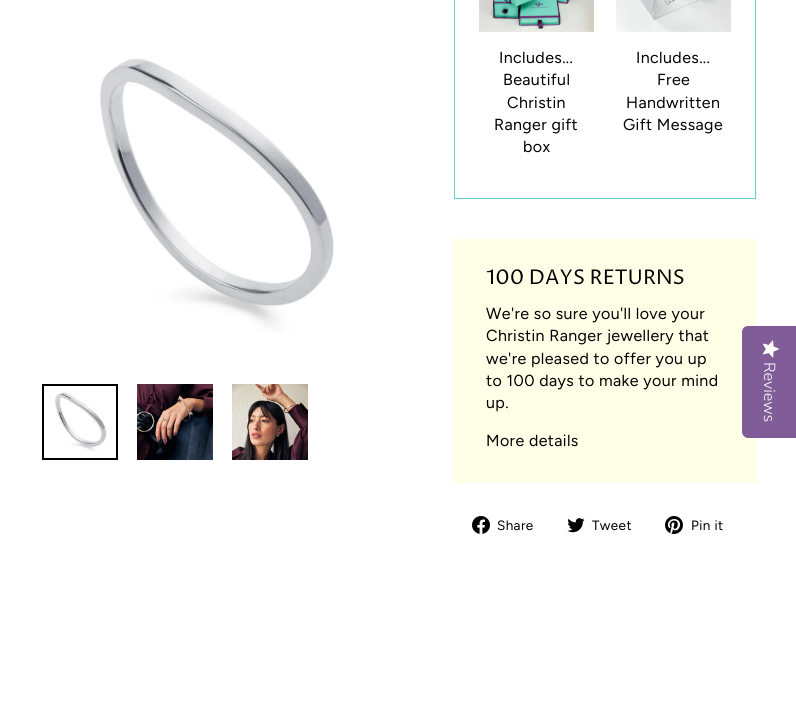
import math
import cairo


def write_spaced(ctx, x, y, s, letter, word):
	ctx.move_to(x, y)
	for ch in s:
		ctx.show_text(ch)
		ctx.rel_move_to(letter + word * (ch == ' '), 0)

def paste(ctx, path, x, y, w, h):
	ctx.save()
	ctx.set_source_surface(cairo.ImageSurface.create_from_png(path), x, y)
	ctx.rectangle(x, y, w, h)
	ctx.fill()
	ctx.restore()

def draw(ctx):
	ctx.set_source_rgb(1, 1, 1)
	ctx.paint()
	paste(ctx, 'media/1.png', 100, 58, 234, 275)
	paste(ctx, 'media/2.png', 55, 392, 52, 60)
	ctx.rectangle(43, 385, 74, 74)
	ctx.set_source_rgb(0, 0, 0)
	ctx.stroke()
	paste(ctx, 'media/3.png', 137, 384, 76, 76)
	paste(ctx, 'media/4.png', 232, 384, 76, 76)
	ctx.rectangle(454.5, -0.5, 301, 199)
	ctx.set_source_rgb(0.396, 0.816, 0.773)
	ctx.set_line_width(1)
	ctx.stroke()
	paste(ctx, 'media/5.png', 479, 0, 115, 32)
	ctx.select_font_face('Figtree')
	ctx.set_font_size(16)
	ctx.set_source_rgb(0, 0, 0)
	for x, y, s in [
		(499, 63, 'Includes...'),
		(503, 85, 'Beautiful'),
		(507, 108, 'Christin'),
		(494, 130, 'Ranger gift'),
		(523, 152, 'box'),
	]:
		write_spaced(ctx, x, y, s, 0.4, 0)
	paste(ctx, 'media/6.png', 616, 0, 115, 32)
	for x, y, s in [
		(636, 63, 'Includes...'),
		(657, 85, 'Free'),
		(626, 108, 'Handwritten'),
		(623, 130, 'Gift Message'),
	]:
		write_spaced(ctx, x, y, s, 0.4, 0)
	ctx.set_source_rgb(0.996, 1, 0.902)
	ctx.rectangle(454, 239, 302, 244)
	ctx.fill()
	ctx.select_font_face('Proza Libre')
	ctx.set_font_size(20.25)
	ctx.set_source_rgb(0, 0, 0)
	ctx.move_to(486, 284)
	ctx.show_text('100 DAYS RETURNS')
	ctx.select_font_face('Figtree')
	ctx.set_font_size(16)
	for x, y, s in [
		(486, 319, 'We\'re so sure you\'ll love your'),
		(486, 341, 'Christin Ranger jewellery that'),
		(486, 364, 'we\'re pleased to offer you up'),
		(486, 386, 'to 100 days to make your mind'),
		(486, 408, 'up.'),
		(486, 446, 'More details'),
	]:
		write_spaced(ctx, x, y, s, 0.4, 0)
	paste(ctx, 'media/7.png', 472, 516, 18, 18)
	ctx.set_font_size(13.5)
	write_spaced(ctx, 497, 530, 'Share', 0.4, 0)
	paste(ctx, 'media/8.png', 567, 518, 18, 15)
	write_spaced(ctx, 592, 530, 'Tweet', 0.4, 0)
	paste(ctx, 'media/9.png', 665, 516, 18, 18)
	write_spaced(ctx, 691, 530, 'Pin it', 0.4, 0)
	ctx.set_source_rgb(0.502, 0.365, 0.596)
	ctx.new_path()
	ctx.move_to(796, 326)
	ctx.line_to(796, 438)
	ctx.line_to(748, 438)
	ctx.curve_to(745, 438, 742, 435, 742, 432)
	ctx.line_to(742, 332)
	ctx.curve_to(742, 328, 745, 326, 748, 326)
	ctx.close_path()
	ctx.fill()
	paste(ctx, 'media/10.png', 762, 340, 18, 18)
	ctx.select_font_face('Nunito Sans Light')
	ctx.set_font_size(16)
	ctx.set_source_rgb(1, 1, 1)
	ctx.save()
	ctx.translate(764, 362)
	ctx.rotate(90 * math.pi / 180)
	ctx.move_to(0, 0)
	ctx.show_text('Reviews')
	ctx.restore()


surface = cairo.ImageSurface(cairo.FORMAT_RGB24, 796, 705)
ctx = cairo.Context(surface)
options = cairo.FontOptions()
options.set_hint_metrics(cairo.HINT_METRICS_OFF)
options.set_hint_style(cairo.HINT_STYLE_NONE)
ctx.set_font_options(options)
ctx.set_miter_limit(4)
draw(ctx)
surface.write_to_png('image.png')
